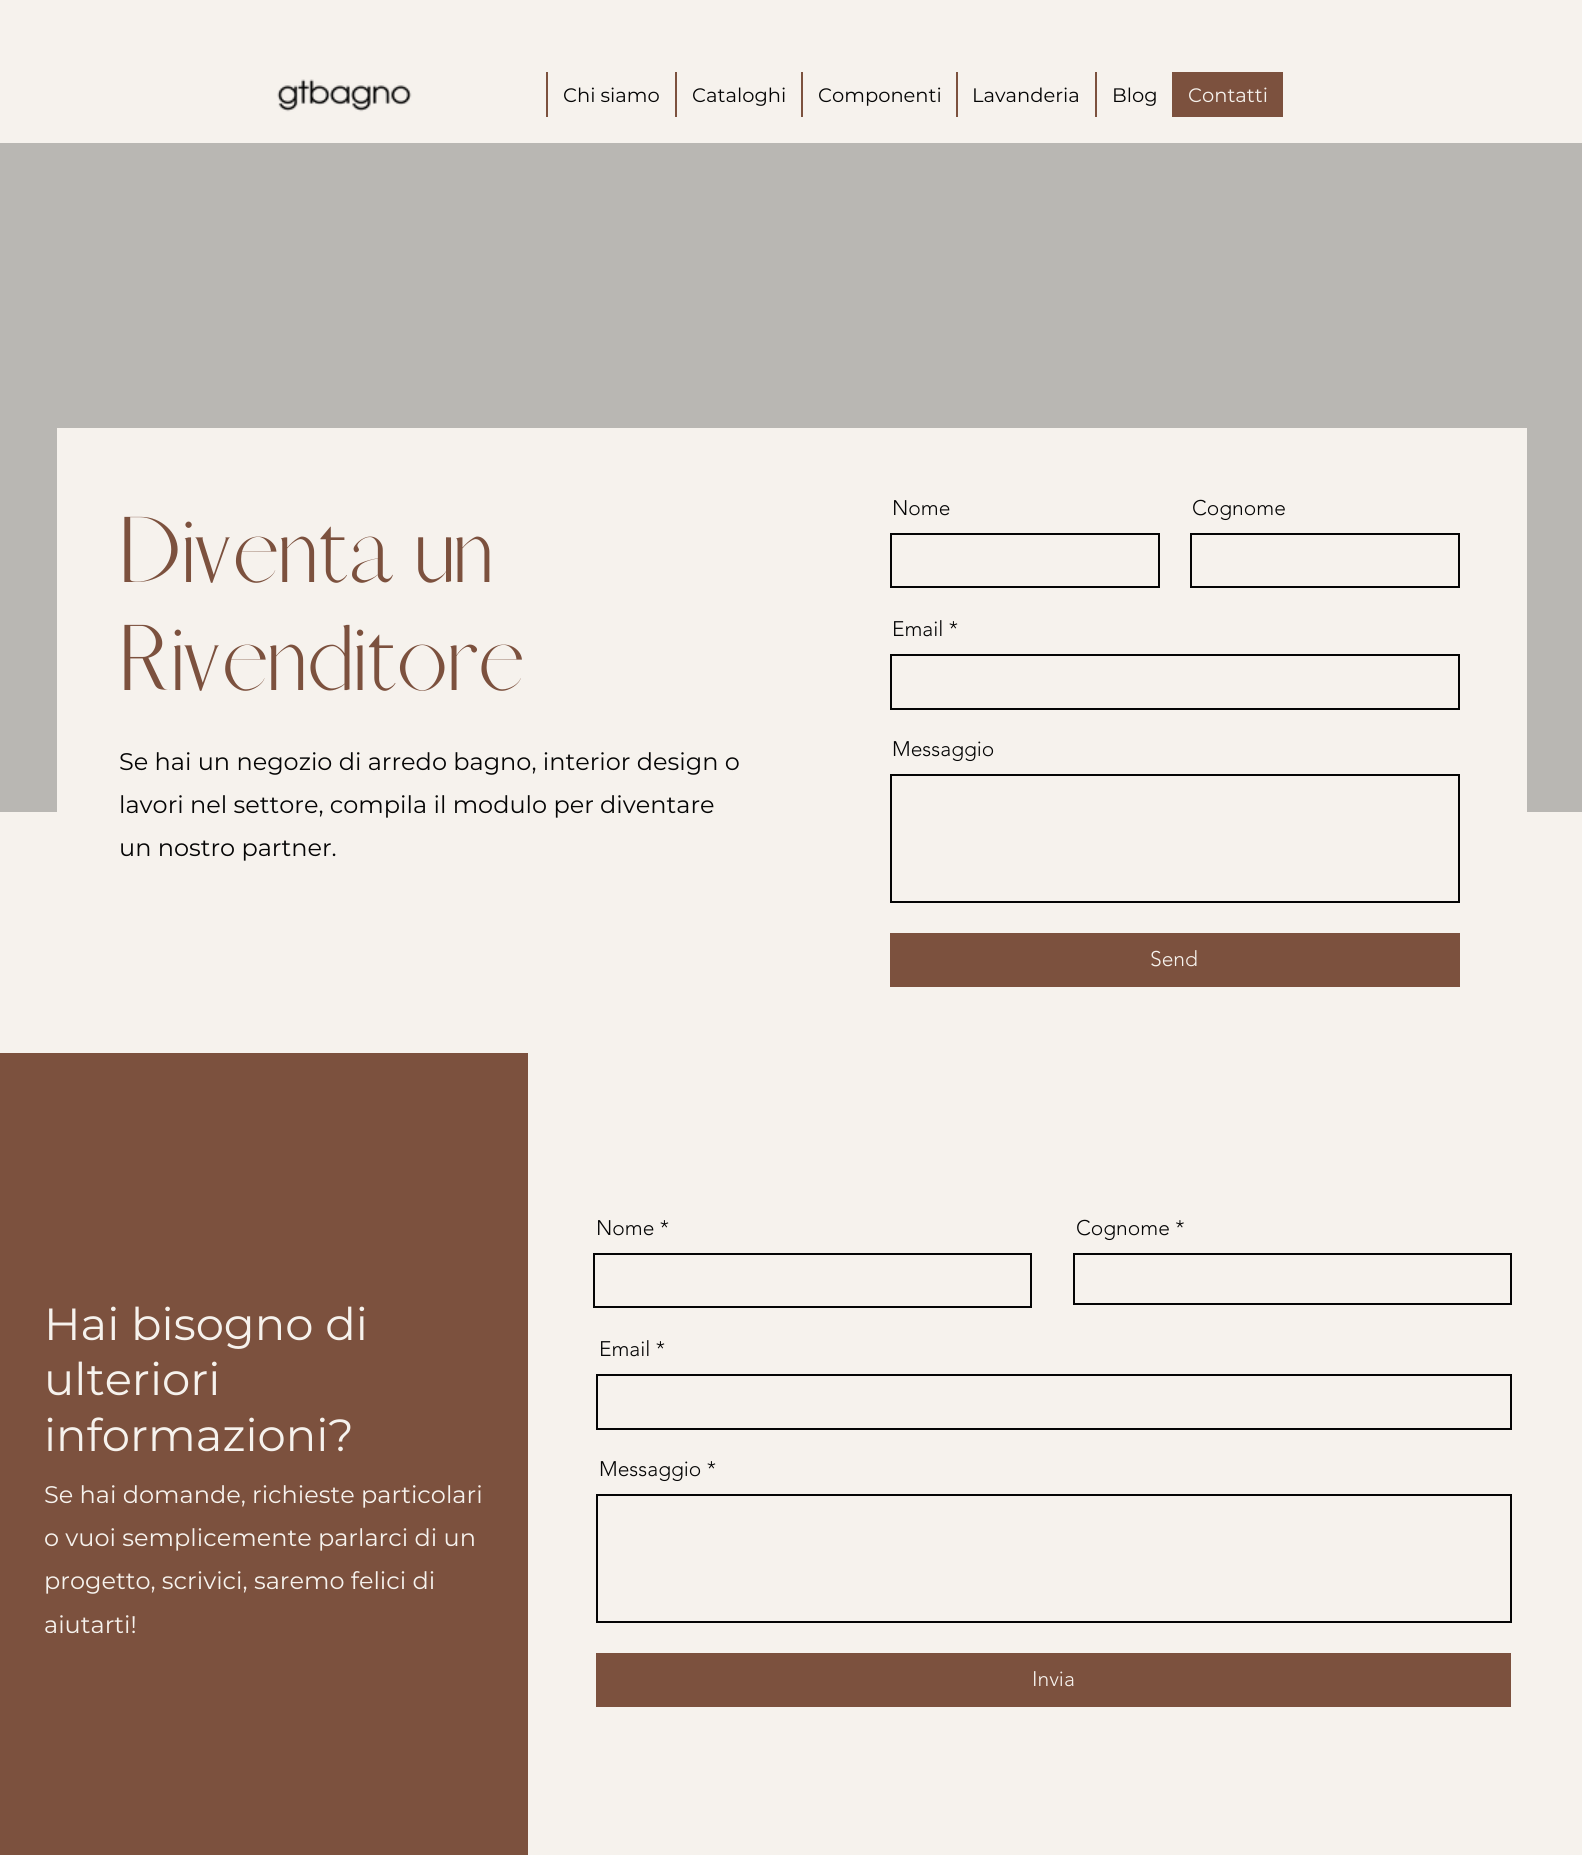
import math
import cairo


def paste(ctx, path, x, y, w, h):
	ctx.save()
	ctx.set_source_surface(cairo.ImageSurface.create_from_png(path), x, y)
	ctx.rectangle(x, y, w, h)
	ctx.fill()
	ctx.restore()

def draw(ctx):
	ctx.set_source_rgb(0.961, 0.949, 0.929)
	ctx.paint()
	paste(ctx, 'media/1.png', 277, 79, 135, 33)
	ctx.set_source_rgb(0.486, 0.318, 0.243)
	ctx.rectangle(546, 72, 2, 45)
	ctx.fill()
	ctx.select_font_face('Montserrat')
	ctx.set_font_size(19.5)
	ctx.set_source_rgb(0.02, 0.02, 0.02)
	ctx.move_to(563, 102)
	ctx.show_text('Chi siamo')
	ctx.set_source_rgb(0.486, 0.318, 0.243)
	ctx.rectangle(675, 72, 2, 45)
	ctx.fill()
	ctx.set_source_rgb(0.02, 0.02, 0.02)
	ctx.move_to(692, 102)
	ctx.show_text('Cataloghi')
	ctx.set_source_rgb(0.486, 0.318, 0.243)
	ctx.rectangle(801, 72, 2, 45)
	ctx.fill()
	ctx.set_source_rgb(0.02, 0.02, 0.02)
	ctx.move_to(818, 102)
	ctx.show_text('Componenti')
	ctx.set_source_rgb(0.486, 0.318, 0.243)
	ctx.rectangle(956, 72, 2, 45)
	ctx.fill()
	ctx.set_source_rgb(0.02, 0.02, 0.02)
	ctx.move_to(972, 102)
	ctx.show_text('Lavanderia')
	ctx.set_source_rgb(0.486, 0.318, 0.243)
	ctx.rectangle(1095, 72, 2, 45)
	ctx.fill()
	ctx.set_source_rgb(0.02, 0.02, 0.02)
	ctx.move_to(1112, 102)
	ctx.show_text('Blog')
	ctx.set_source_rgb(0.486, 0.318, 0.243)
	ctx.rectangle(1172, 72, 111, 45)
	ctx.fill()
	ctx.set_source_rgb(0.961, 0.949, 0.929)
	ctx.move_to(1188, 102)
	ctx.show_text('Contatti')
	ctx.set_source_rgb(0.725, 0.718, 0.702)
	ctx.rectangle(0, 143, 1582, 669)
	ctx.fill()
	ctx.set_source_rgb(0.961, 0.949, 0.929)
	ctx.rectangle(57, 428, 1470, 384)
	ctx.fill()
	ctx.select_font_face('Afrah')
	ctx.set_font_size(84)
	ctx.set_source_rgb(0.486, 0.318, 0.243)
	ctx.move_to(116, 582)
	ctx.show_text('Diventa un')
	ctx.move_to(116, 690)
	ctx.show_text('Rivenditore')
	ctx.select_font_face('Montserrat')
	ctx.set_font_size(24)
	ctx.set_source_rgb(0.02, 0.02, 0.02)
	for x, y, s in [
		(119, 770, 'Se hai un negozio di arredo bagno, interior design o'),
		(119, 813, 'lavori nel settore, compila il modulo per diventare'),
		(119, 856, 'un nostro partner.'),
	]:
		ctx.move_to(x, y)
		ctx.show_text(s)
	ctx.select_font_face('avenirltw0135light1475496 Light')
	ctx.set_font_size(21)
	ctx.move_to(892, 515)
	ctx.show_text('Nome')
	ctx.rectangle(891, 534, 268, 53)
	ctx.stroke()
	ctx.move_to(1192, 515)
	ctx.show_text('Cognome')
	ctx.rectangle(1191, 534, 268, 53)
	ctx.stroke()
	ctx.move_to(892, 636)
	ctx.show_text('Email *')
	ctx.rectangle(891, 655, 568, 54)
	ctx.stroke()
	ctx.move_to(892, 756)
	ctx.show_text('Messaggio')
	ctx.rectangle(891, 775, 568, 127)
	ctx.stroke()
	ctx.set_source_rgb(0.486, 0.318, 0.243)
	ctx.rectangle(890, 933, 570, 54)
	ctx.fill()
	ctx.set_source_rgb(0.961, 0.949, 0.929)
	ctx.move_to(1150, 966)
	ctx.show_text('Send')
	ctx.set_source_rgb(0.486, 0.318, 0.243)
	ctx.rectangle(0, 1053, 528, 802)
	ctx.fill()
	ctx.select_font_face('Montserrat')
	ctx.set_font_size(45)
	ctx.set_source_rgb(0.961, 0.949, 0.929)
	for x, y, s in [
		(44, 1340, 'Hai bisogno di'),
		(44, 1395, 'ulteriori'),
		(44, 1451, 'informazioni?'),
	]:
		ctx.move_to(x, y)
		ctx.show_text(s)
	ctx.set_font_size(24)
	for x, y, s in [
		(44, 1503, 'Se hai domande, richieste particolari'),
		(44, 1546, 'o vuoi semplicemente parlarci di un'),
		(44, 1589, 'progetto, scrivici, saremo felici di'),
		(44, 1633, 'aiutarti!'),
	]:
		ctx.move_to(x, y)
		ctx.show_text(s)
	ctx.select_font_face('avenirltw0135light1475496 Light')
	ctx.set_font_size(21)
	ctx.set_source_rgb(0.02, 0.02, 0.02)
	ctx.move_to(596, 1235)
	ctx.show_text('Nome *')
	ctx.rectangle(594, 1254, 437, 53)
	ctx.stroke()
	ctx.move_to(1076, 1235)
	ctx.show_text('Cognome *')
	ctx.rectangle(1074, 1254, 437, 50)
	ctx.stroke()
	ctx.move_to(599, 1356)
	ctx.show_text('Email *')
	ctx.rectangle(597, 1375, 914, 54)
	ctx.stroke()
	ctx.move_to(599, 1476)
	ctx.show_text('Messaggio *')
	ctx.rectangle(597, 1495, 914, 127)
	ctx.stroke()
	ctx.set_source_rgb(0.486, 0.318, 0.243)
	ctx.rectangle(596, 1653, 915, 54)
	ctx.fill()
	ctx.set_source_rgb(0.961, 0.949, 0.929)
	ctx.move_to(1032, 1686)
	ctx.show_text('Invia')


surface = cairo.ImageSurface(cairo.FORMAT_RGB24, 1582, 1855)
ctx = cairo.Context(surface)
options = cairo.FontOptions()
options.set_hint_metrics(cairo.HINT_METRICS_OFF)
options.set_hint_style(cairo.HINT_STYLE_NONE)
ctx.set_font_options(options)
ctx.set_miter_limit(4)
draw(ctx)
surface.write_to_png('image.png')
